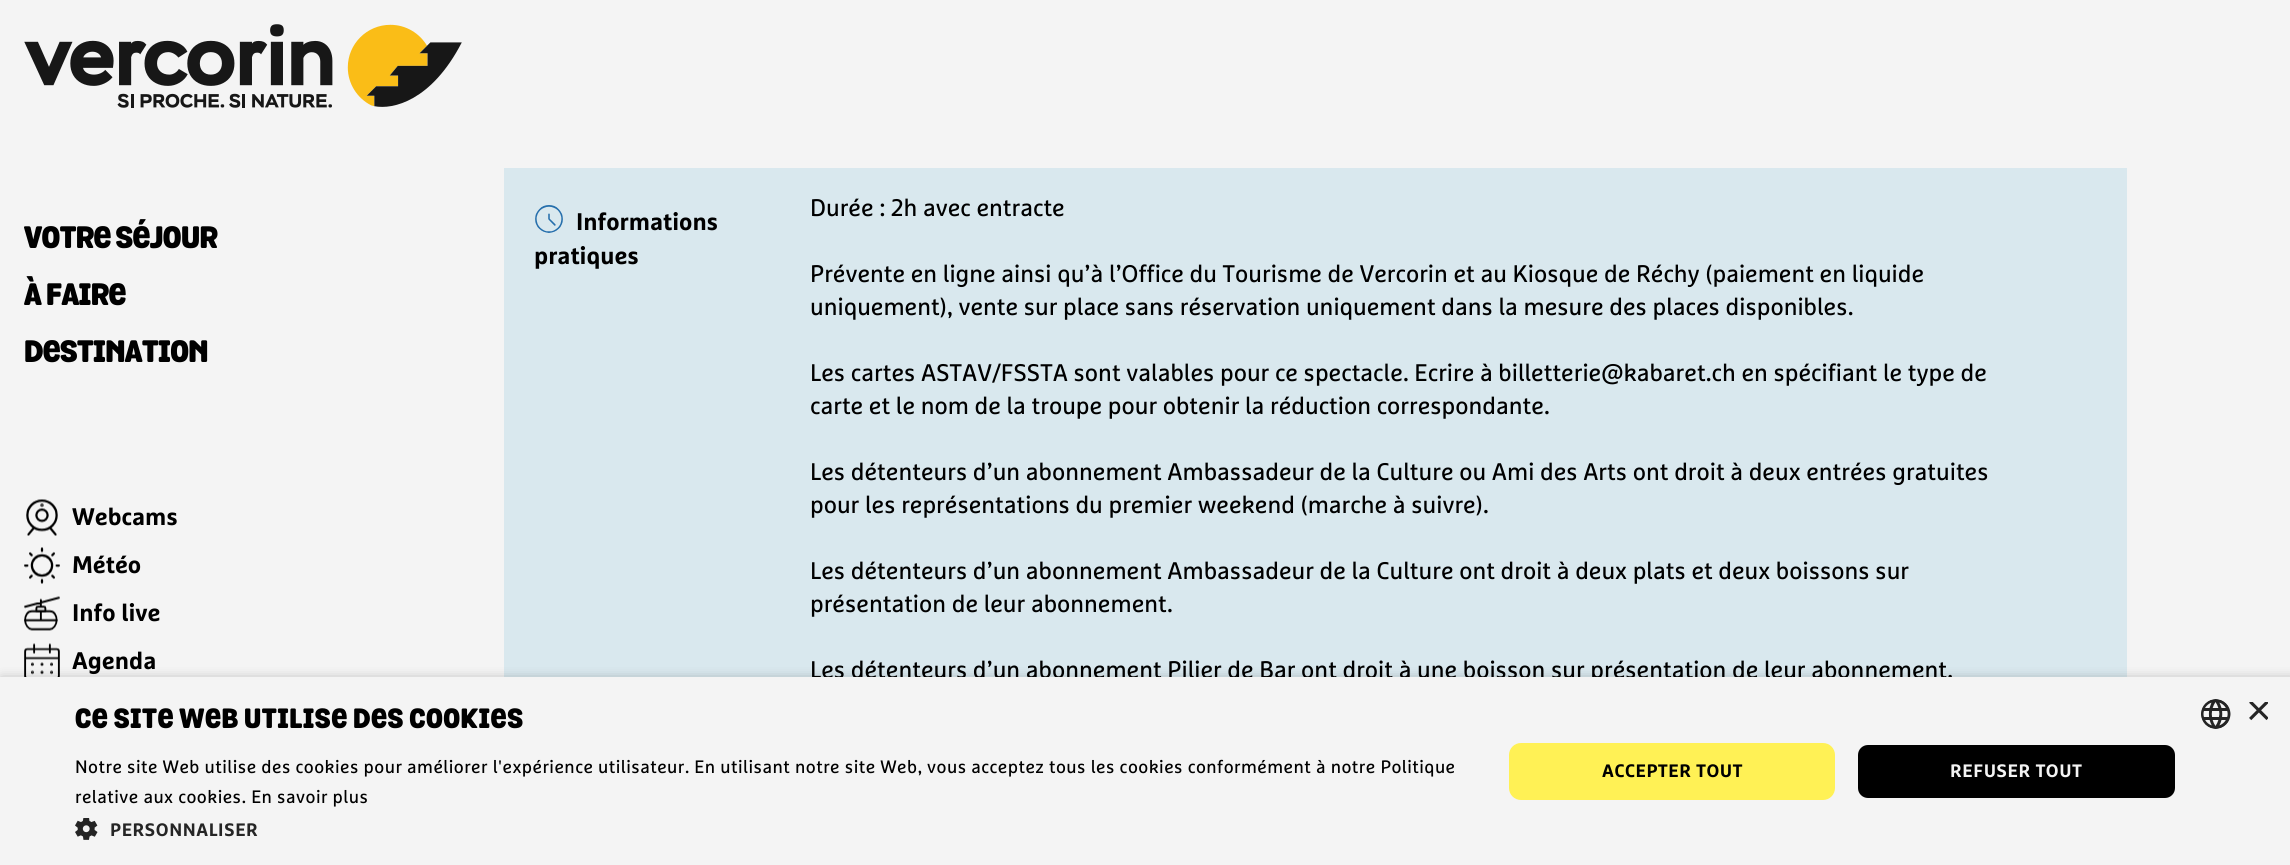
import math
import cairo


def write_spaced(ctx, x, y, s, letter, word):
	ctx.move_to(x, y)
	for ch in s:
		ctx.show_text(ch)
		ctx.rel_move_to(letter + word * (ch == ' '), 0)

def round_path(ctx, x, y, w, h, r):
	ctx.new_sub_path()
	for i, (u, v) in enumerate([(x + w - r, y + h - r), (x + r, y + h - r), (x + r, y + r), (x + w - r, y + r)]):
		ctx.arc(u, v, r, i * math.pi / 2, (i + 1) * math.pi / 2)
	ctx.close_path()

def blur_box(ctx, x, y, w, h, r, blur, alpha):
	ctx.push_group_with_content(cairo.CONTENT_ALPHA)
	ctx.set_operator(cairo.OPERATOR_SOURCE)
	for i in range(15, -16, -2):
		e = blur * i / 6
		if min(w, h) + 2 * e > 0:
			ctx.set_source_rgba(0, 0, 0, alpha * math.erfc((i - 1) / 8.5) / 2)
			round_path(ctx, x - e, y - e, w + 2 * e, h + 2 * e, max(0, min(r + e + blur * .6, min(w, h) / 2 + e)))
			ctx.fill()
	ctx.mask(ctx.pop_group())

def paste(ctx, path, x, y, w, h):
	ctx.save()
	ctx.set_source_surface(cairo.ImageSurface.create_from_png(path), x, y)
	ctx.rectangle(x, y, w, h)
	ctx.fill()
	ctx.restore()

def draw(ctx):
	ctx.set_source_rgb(0.957, 0.957, 0.957)
	ctx.paint()
	paste(ctx, 'media/1.png', 24, 24, 438, 84)
	ctx.select_font_face('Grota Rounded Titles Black')
	ctx.set_font_size(30)
	ctx.set_source_rgb(0, 0, 0)
	for x, y, s in [
		(24, 248, 'VOTRE SÉJOUR'),
		(24, 305, 'À FAIRE'),
		(24, 362, 'DESTINATION'),
	]:
		write_spaced(ctx, x, y, s, -0.6, 0)
	paste(ctx, 'media/2.png', 26, 499, 32, 37)
	ctx.select_font_face('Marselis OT', cairo.FONT_SLANT_NORMAL, cairo.FONT_WEIGHT_BOLD)
	ctx.set_font_size(24)
	ctx.move_to(72, 525)
	ctx.show_text('Webcams')
	paste(ctx, 'media/3.png', 24, 547, 36, 37)
	ctx.move_to(72, 573)
	ctx.show_text('Météo')
	paste(ctx, 'media/4.png', 24, 596, 36, 35)
	ctx.move_to(72, 621)
	ctx.show_text('Info live')
	paste(ctx, 'media/5.png', 24, 643, 36, 34)
	ctx.move_to(72, 669)
	ctx.show_text('Agenda')
	ctx.set_source_rgb(0.851, 0.91, 0.933)
	ctx.rectangle(504, 168, 1623, 509)
	ctx.fill()
	paste(ctx, 'media/6.png', 535, 205, 28, 28)
	ctx.set_source_rgb(0, 0, 0)
	ctx.move_to(576, 230)
	ctx.show_text('Informations')
	ctx.move_to(534, 264)
	ctx.show_text('pratiques')
	ctx.select_font_face('Marselis OT')
	for x, y, s in [
		(810, 216, 'Durée : 2h avec entracte'),
		(810, 282, 'Prévente en ligne ainsi qu’à l’Office du Tourisme de Vercorin et au Kiosque de Réchy (paiement en liquide'),
		(810, 315, 'uniquement), vente sur place sans réservation uniquement dans la mesure des places disponibles.'),
		(810, 381, 'Les cartes ASTAV/FSSTA sont valables pour ce spectacle. Ecrire à billetterie@kabaret.ch en spécifiant le type de'),
		(810, 414, 'carte et le nom de la troupe pour obtenir la réduction correspondante.'),
		(810, 480, 'Les détenteurs d’un abonnement Ambassadeur de la Culture ou Ami des Arts ont droit à deux entrées gratuites'),
		(810, 513, 'pour les représentations du premier weekend (marche à suivre).'),
		(810, 579, 'Les détenteurs d’un abonnement Ambassadeur de la Culture ont droit à deux plats et deux boissons sur'),
		(810, 612, 'présentation de leur abonnement.'),
		(810, 678, 'Les détenteurs d’un abonnement Pilier de Bar ont droit à une boisson sur présentation de leur abonnement.'),
	]:
		ctx.move_to(x, y)
		ctx.show_text(s)
	ctx.set_source_rgb(0, 0, 0)
	blur_box(ctx, 2, 680, 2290, 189, 0, 6, 0.35)
	ctx.set_source_rgb(0.957, 0.957, 0.957)
	ctx.rectangle(0, 677, 2290, 188)
	ctx.fill()
	ctx.select_font_face('Grota Rounded Titles Black')
	ctx.set_font_size(27)
	ctx.set_source_rgb(0, 0, 0)
	write_spaced(ctx, 75, 728, 'CE SITE WEB UTILISE DES COOKIES', 0.5, 0)
	ctx.select_font_face('Marselis OT')
	ctx.set_font_size(18)
	write_spaced(ctx, 75, 773, 'Notre site Web utilise des cookies pour améliorer l\'expérience utilisateur. En utilisant notre site Web, vous acceptez tous les cookies conformément à notre Politique', 0.45, 0)
	write_spaced(ctx, 75, 803, 'relative aux cookies. En savoir plus', 0.45, 0)
	paste(ctx, 'media/7.png', 75, 818, 23, 22)
	ctx.select_font_face('Marselis OT', cairo.FONT_SLANT_NORMAL, cairo.FONT_WEIGHT_BOLD)
	ctx.set_source_rgb(0.145, 0.145, 0.145)
	write_spaced(ctx, 110, 836, 'PERSONNALISER', 0.6, 0)
	ctx.set_source_rgb(1, 0.945, 0.333)
	round_path(ctx, 1509, 743, 326, 57, 12)
	ctx.fill()
	ctx.set_source_rgb(0, 0, 0)
	write_spaced(ctx, 1602, 777, 'ACCEPTER TOUT', 0.6, 0)
	round_path(ctx, 1857, 744, 319, 55, 11)
	ctx.fill_preserve()
	ctx.set_source_rgb(0.957, 0.957, 0.957)
	ctx.stroke()
	write_spaced(ctx, 1950, 777, 'REFUSER TOUT', 0.6, 0)
	paste(ctx, 'media/8.png', 2201, 699, 30, 30)
	ctx.save()
	ctx.rectangle(2246, 702, 22, 23)
	ctx.clip()
	ctx.select_font_face('Liberation Sans')
	ctx.set_font_size(44)
	ctx.set_source_rgb(0.145, 0.145, 0.145)
	ctx.move_to(2246, 725)
	ctx.show_text('×')
	ctx.restore()


surface = cairo.ImageSurface(cairo.FORMAT_RGB24, 2290, 865)
ctx = cairo.Context(surface)
options = cairo.FontOptions()
options.set_hint_metrics(cairo.HINT_METRICS_OFF)
options.set_hint_style(cairo.HINT_STYLE_NONE)
ctx.set_font_options(options)
ctx.set_miter_limit(4)
draw(ctx)
surface.write_to_png('image.png')
